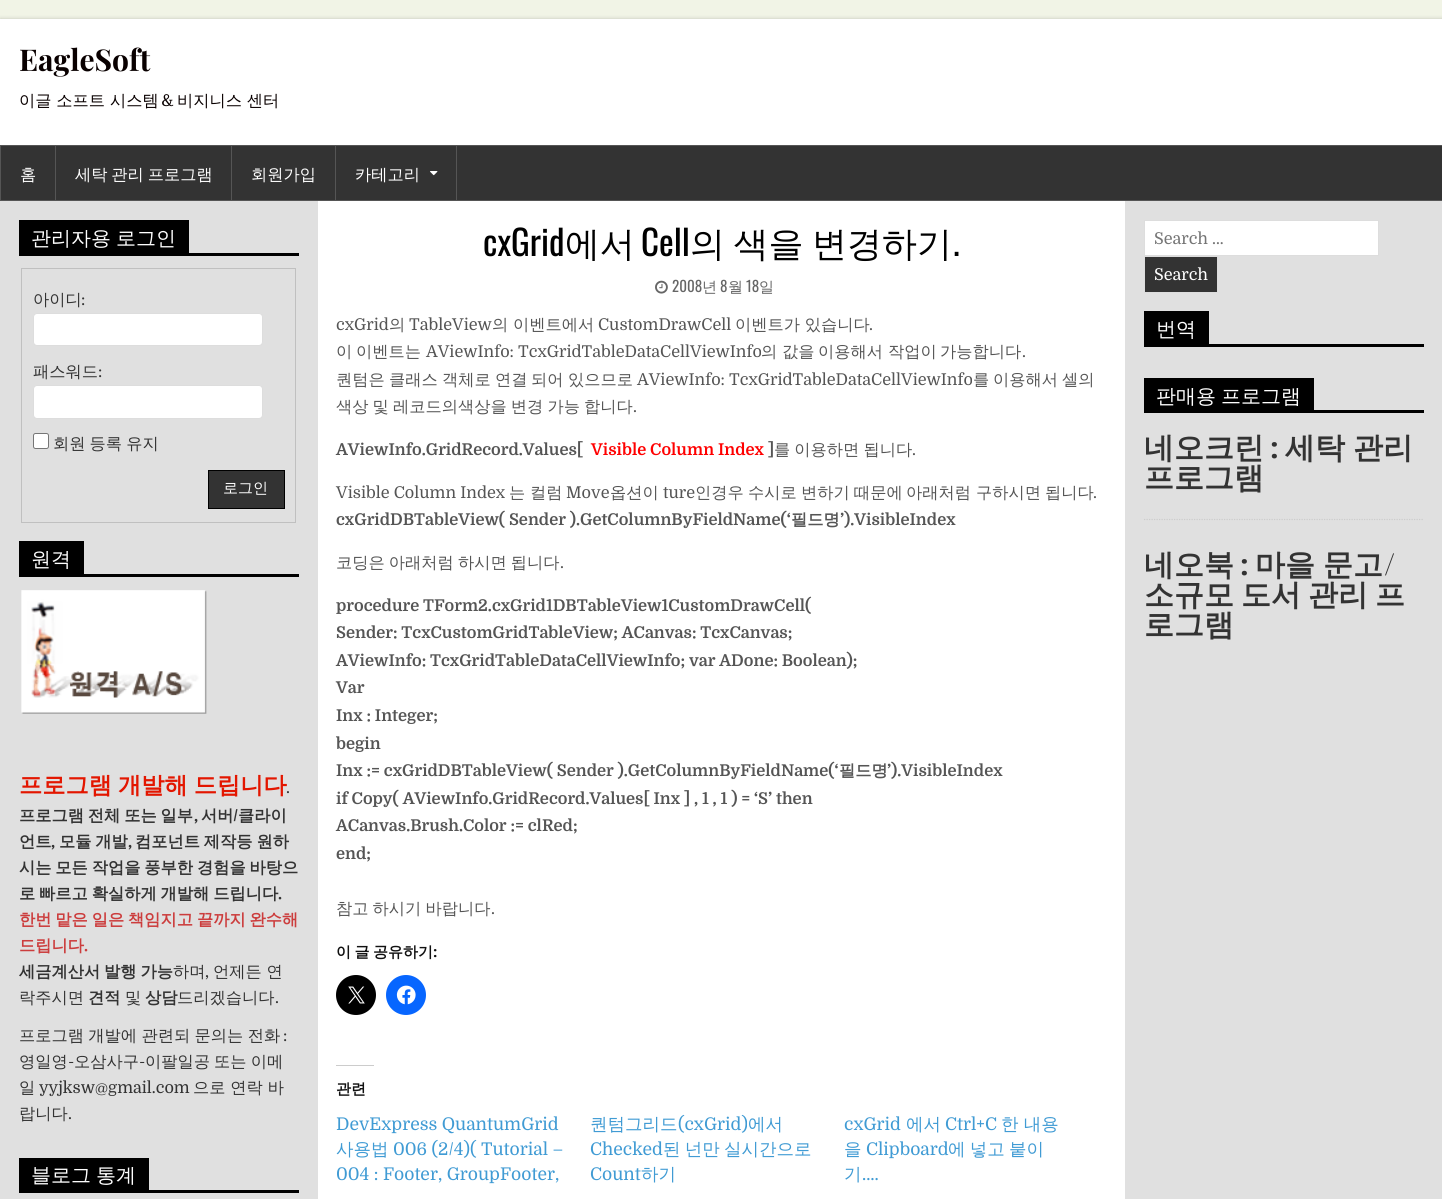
import math
import cairo


def write_spaced(ctx, x, y, s, letter, word):
	ctx.move_to(x, y)
	for ch in s:
		ctx.show_text(ch)
		ctx.rel_move_to(letter + word * (ch == ' '), 0)

def round_path(ctx, x, y, w, h, r):
	ctx.new_sub_path()
	for i, (u, v) in enumerate([(x + w - r, y + h - r), (x + r, y + h - r), (x + r, y + r), (x + w - r, y + r)]):
		ctx.arc(u, v, r, i * math.pi / 2, (i + 1) * math.pi / 2)
	ctx.close_path()

def blur_box(ctx, x, y, w, h, r, blur, alpha):
	ctx.push_group_with_content(cairo.CONTENT_ALPHA)
	ctx.set_operator(cairo.OPERATOR_SOURCE)
	for i in range(15, -16, -2):
		e = blur * i / 6
		if min(w, h) + 2 * e > 0:
			ctx.set_source_rgba(0, 0, 0, alpha * math.erfc((i - 1) / 8.5) / 2)
			round_path(ctx, x - e, y - e, w + 2 * e, h + 2 * e, max(0, min(r + e + blur * .6, min(w, h) / 2 + e)))
			ctx.fill()
	ctx.mask(ctx.pop_group())

def paste(ctx, path, x, y, w, h):
	ctx.save()
	ctx.set_source_surface(cairo.ImageSurface.create_from_png(path), x, y)
	ctx.rectangle(x, y, w, h)
	ctx.fill()
	ctx.restore()

def draw(ctx):
	ctx.set_source_rgb(0.945, 0.957, 0.902)
	ctx.paint()
	ctx.set_source_rgb(0, 0, 0)
	blur_box(ctx, 0, 20, 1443, 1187, 0, 2.5, 0.3)
	ctx.set_source_rgb(1, 1, 1)
	ctx.rectangle(0, 19, 1442, 126)
	ctx.fill()
	ctx.select_font_face('Playfair Display', cairo.FONT_SLANT_NORMAL, cairo.FONT_WEIGHT_BOLD)
	ctx.set_font_size(30)
	ctx.set_source_rgb(0.039, 0, 0)
	ctx.move_to(19, 71)
	ctx.show_text('EagleSoft')
	ctx.select_font_face('WenQuanYi Zen Hei Medium')
	ctx.set_font_size(16.25)
	ctx.move_to(19, 106)
	ctx.show_text('이글 소프트 시스템')
	ctx.select_font_face('Domine')
	ctx.move_to(161, 106)
	ctx.show_text('&')
	ctx.select_font_face('WenQuanYi Zen Hei Medium')
	ctx.move_to(177, 106)
	ctx.show_text('비지니스 센터')
	ctx.set_source_rgb(0.2, 0.2, 0.2)
	ctx.rectangle(0.5, 145.5, 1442, 55)
	ctx.fill_preserve()
	ctx.set_source_rgb(0.333, 0.333, 0.333)
	ctx.set_line_width(1)
	ctx.stroke()
	ctx.rectangle(55, 146, 1, 54)
	ctx.fill()
	ctx.set_source_rgb(1, 1, 1)
	ctx.move_to(20, 180)
	ctx.show_text('홈')
	ctx.set_source_rgb(0.333, 0.333, 0.333)
	ctx.rectangle(231, 146, 1, 54)
	ctx.fill()
	ctx.set_source_rgb(1, 1, 1)
	write_spaced(ctx, 75, 180, '세탁 관리 프로그램', 0, -1)
	ctx.set_source_rgb(0.333, 0.333, 0.333)
	ctx.rectangle(335, 146, 1, 54)
	ctx.fill()
	ctx.set_source_rgb(1, 1, 1)
	ctx.move_to(251, 180)
	ctx.show_text('회원가입')
	ctx.set_source_rgb(0.333, 0.333, 0.333)
	ctx.rectangle(456, 146, 1, 54)
	ctx.fill()
	ctx.set_source_rgb(1, 1, 1)
	ctx.move_to(355, 180)
	ctx.show_text('카테고리')
	paste(ctx, 'media/1.png', 430, 171, 8, 5)
	ctx.set_source_rgb(0.878, 0.878, 0.878)
	ctx.rectangle(0, 201, 318, 998)
	ctx.fill()
	ctx.set_source_rgb(0, 0, 0)
	ctx.rectangle(19, 253, 280, 3)
	ctx.rectangle(19, 220, 170, 33)
	ctx.fill()
	ctx.set_font_size(20)
	ctx.set_source_rgb(1, 1, 1)
	write_spaced(ctx, 31, 245, '관리자용 로그인', 0, -1)
	ctx.rectangle(21.5, 268.5, 274, 254)
	ctx.set_source_rgb(0.753, 0.753, 0.753)
	ctx.stroke()
	ctx.set_font_size(16.25)
	ctx.set_source_rgb(0.2, 0.2, 0.2)
	ctx.move_to(33, 305)
	ctx.show_text('아이디')
	ctx.select_font_face('Domine')
	ctx.move_to(81, 305)
	ctx.show_text(':')
	ctx.set_source_rgb(1, 1, 1)
	round_path(ctx, 33.5, 313.5, 229, 32, 3.5)
	ctx.fill_preserve()
	ctx.set_source_rgb(0.867, 0.867, 0.867)
	ctx.stroke()
	ctx.select_font_face('WenQuanYi Zen Hei Medium')
	ctx.set_source_rgb(0.2, 0.2, 0.2)
	ctx.move_to(33, 377)
	ctx.show_text('패스워드')
	ctx.select_font_face('Domine')
	ctx.move_to(98, 377)
	ctx.show_text(':')
	ctx.set_source_rgb(1, 1, 1)
	round_path(ctx, 33.5, 385.5, 229, 33, 3.5)
	ctx.fill_preserve()
	ctx.set_source_rgb(0.867, 0.867, 0.867)
	ctx.stroke()
	ctx.set_source_rgb(1, 1, 1)
	round_path(ctx, 33.5, 433.5, 15, 15, 2)
	ctx.fill_preserve()
	ctx.set_source_rgb(0.463, 0.463, 0.463)
	ctx.stroke()
	ctx.select_font_face('WenQuanYi Zen Hei Medium')
	ctx.set_source_rgb(0.2, 0.2, 0.2)
	write_spaced(ctx, 53, 449, '회원 등록 유지', 0, -0.75)
	ctx.rectangle(208.5, 470.5, 76, 38)
	ctx.fill_preserve()
	ctx.set_source_rgb(0, 0, 0)
	ctx.stroke()
	ctx.set_font_size(15)
	ctx.set_source_rgb(1, 1, 1)
	ctx.move_to(223, 493)
	ctx.show_text('로그인')
	ctx.set_source_rgb(0, 0, 0)
	ctx.rectangle(19, 574, 280, 3)
	ctx.fill()
	ctx.rectangle(19, 541, 65, 33)
	ctx.fill()
	ctx.set_font_size(20)
	ctx.set_source_rgb(1, 1, 1)
	ctx.move_to(31, 566)
	ctx.show_text('원격')
	paste(ctx, 'media/2.png', 21, 590, 186, 124)
	ctx.select_font_face('WenQuanYi Zen Hei', cairo.FONT_SLANT_NORMAL, cairo.FONT_WEIGHT_BOLD)
	ctx.set_font_size(23.25)
	ctx.set_source_rgb(0.89, 0.086, 0)
	write_spaced(ctx, 19, 793, '프로그램 개발해 드립니다', 0, -1)
	ctx.select_font_face('Domine')
	ctx.set_font_size(16.25)
	ctx.set_source_rgb(0.2, 0.2, 0.2)
	ctx.move_to(286, 793)
	ctx.show_text('.')
	ctx.select_font_face('WenQuanYi Zen Hei', cairo.FONT_SLANT_NORMAL, cairo.FONT_WEIGHT_BOLD)
	write_spaced(ctx, 19, 821, '프로그램 전체 또는 일부', 0, -1)
	ctx.select_font_face('Domine', cairo.FONT_SLANT_NORMAL, cairo.FONT_WEIGHT_BOLD)
	ctx.move_to(194, 821)
	ctx.show_text(',')
	ctx.select_font_face('WenQuanYi Zen Hei', cairo.FONT_SLANT_NORMAL, cairo.FONT_WEIGHT_BOLD)
	ctx.move_to(201, 821)
	ctx.show_text('서버')
	ctx.select_font_face('Domine', cairo.FONT_SLANT_NORMAL, cairo.FONT_WEIGHT_BOLD)
	ctx.move_to(233, 821)
	ctx.show_text('/')
	ctx.select_font_face('WenQuanYi Zen Hei', cairo.FONT_SLANT_NORMAL, cairo.FONT_WEIGHT_BOLD)
	ctx.move_to(238, 821)
	ctx.show_text('클라이')
	ctx.move_to(19, 847)
	ctx.show_text('언트')
	ctx.select_font_face('Domine', cairo.FONT_SLANT_NORMAL, cairo.FONT_WEIGHT_BOLD)
	ctx.move_to(51, 847)
	ctx.show_text(',')
	ctx.select_font_face('WenQuanYi Zen Hei', cairo.FONT_SLANT_NORMAL, cairo.FONT_WEIGHT_BOLD)
	write_spaced(ctx, 59, 847, '모듈 개발', 0, -1)
	ctx.select_font_face('Domine', cairo.FONT_SLANT_NORMAL, cairo.FONT_WEIGHT_BOLD)
	ctx.move_to(128, 847)
	ctx.show_text(',')
	ctx.select_font_face('WenQuanYi Zen Hei', cairo.FONT_SLANT_NORMAL, cairo.FONT_WEIGHT_BOLD)
	for x, y, s in [
		(135, 847, '컴포넌트 제작등 원하'),
		(19, 873, '시는 모든 작업을 풍부한 경험을 바탕으'),
		(19, 899, '로 빠르고 확실하게 개발해 드립니다'),
	]:
		write_spaced(ctx, x, y, s, 0, -1)
	ctx.select_font_face('Domine', cairo.FONT_SLANT_NORMAL, cairo.FONT_WEIGHT_BOLD)
	ctx.move_to(278, 899)
	ctx.show_text('.')
	ctx.select_font_face('WenQuanYi Zen Hei', cairo.FONT_SLANT_NORMAL, cairo.FONT_WEIGHT_BOLD)
	ctx.set_source_rgb(0.8, 0.239, 0.239)
	write_spaced(ctx, 19, 925, '한번 맡은 일은 책임지고 끝까지 완수해', 0, -1)
	ctx.move_to(19, 951)
	ctx.show_text('드립니다')
	ctx.select_font_face('Domine', cairo.FONT_SLANT_NORMAL, cairo.FONT_WEIGHT_BOLD)
	ctx.move_to(84, 951)
	ctx.show_text('.')
	ctx.select_font_face('WenQuanYi Zen Hei', cairo.FONT_SLANT_NORMAL, cairo.FONT_WEIGHT_BOLD)
	ctx.set_source_rgb(0.2, 0.2, 0.2)
	write_spaced(ctx, 19, 977, '세금계산서 발행 가능', 0, -1)
	ctx.select_font_face('WenQuanYi Zen Hei Medium')
	ctx.move_to(173, 977)
	ctx.show_text('하며')
	ctx.select_font_face('Domine')
	ctx.move_to(205, 977)
	ctx.show_text(',')
	ctx.select_font_face('WenQuanYi Zen Hei Medium')
	ctx.move_to(213, 977)
	ctx.show_text('언제든 연')
	ctx.move_to(19, 1003)
	ctx.show_text('락주시면')
	ctx.select_font_face('WenQuanYi Zen Hei', cairo.FONT_SLANT_NORMAL, cairo.FONT_WEIGHT_BOLD)
	ctx.move_to(88, 1003)
	ctx.show_text('견적')
	ctx.select_font_face('WenQuanYi Zen Hei Medium')
	ctx.move_to(125, 1003)
	ctx.show_text('및')
	ctx.select_font_face('WenQuanYi Zen Hei', cairo.FONT_SLANT_NORMAL, cairo.FONT_WEIGHT_BOLD)
	ctx.move_to(145, 1003)
	ctx.show_text('상담')
	ctx.select_font_face('WenQuanYi Zen Hei Medium')
	ctx.move_to(177, 1003)
	ctx.show_text('드리겠습니다')
	ctx.select_font_face('Domine')
	ctx.move_to(275, 1003)
	ctx.show_text('.')
	ctx.select_font_face('WenQuanYi Zen Hei Medium')
	write_spaced(ctx, 19, 1041, '프로그램 개발에 관련되 문의는 전화', 0, -0.5)
	ctx.select_font_face('Domine')
	ctx.move_to(283, 1041)
	ctx.show_text(':')
	ctx.select_font_face('WenQuanYi Zen Hei Medium')
	ctx.move_to(19, 1067)
	ctx.show_text('영일영')
	ctx.select_font_face('Domine')
	ctx.move_to(68, 1067)
	ctx.show_text('-')
	ctx.select_font_face('WenQuanYi Zen Hei Medium')
	ctx.move_to(74, 1067)
	ctx.show_text('오삼사구')
	ctx.select_font_face('Domine')
	ctx.move_to(139, 1067)
	ctx.show_text('-')
	ctx.select_font_face('WenQuanYi Zen Hei Medium')
	write_spaced(ctx, 145, 1067, '이팔일공 또는 이메', 0, -0.75)
	ctx.move_to(19, 1093)
	ctx.show_text('일')
	ctx.select_font_face('Domine')
	ctx.move_to(39, 1093)
	ctx.show_text('yyjksw@gmail.com')
	ctx.select_font_face('WenQuanYi Zen Hei Medium')
	ctx.move_to(193, 1093)
	ctx.show_text('으로 연락 바')
	ctx.move_to(19, 1119)
	ctx.show_text('랍니다')
	ctx.select_font_face('Domine')
	ctx.move_to(68, 1119)
	ctx.show_text('.')
	ctx.set_source_rgb(0, 0, 0)
	ctx.rectangle(19, 1190, 280, 3)
	ctx.fill()
	ctx.rectangle(19, 1158, 130, 32)
	ctx.fill()
	ctx.select_font_face('WenQuanYi Zen Hei Medium')
	ctx.set_font_size(20)
	ctx.set_source_rgb(1, 1, 1)
	write_spaced(ctx, 31, 1182, '블로그 통계', 0, -1)
	ctx.rectangle(318, 201, 807, 998)
	ctx.fill()
	ctx.select_font_face('Oswald')
	ctx.set_font_size(35)
	ctx.set_source_rgb(0, 0, 0)
	ctx.move_to(483, 256)
	ctx.show_text('cxGrid')
	ctx.select_font_face('WenQuanYi Zen Hei Medium')
	ctx.move_to(565, 256)
	ctx.show_text('에서')
	ctx.select_font_face('Oswald')
	ctx.move_to(641, 256)
	ctx.show_text('Cell')
	ctx.select_font_face('WenQuanYi Zen Hei Medium')
	write_spaced(ctx, 690, 256, '의 색을 변경하기', 0, -2)
	ctx.select_font_face('Oswald')
	ctx.move_to(953, 256)
	ctx.show_text('.')
	paste(ctx, 'media/3.png', 655, 280, 13, 14)
	ctx.set_font_size(15)
	ctx.set_source_rgb(0.4, 0.4, 0.4)
	ctx.move_to(672, 292)
	ctx.show_text('2008')
	ctx.select_font_face('WenQuanYi Zen Hei Medium')
	ctx.move_to(702, 292)
	ctx.show_text('년')
	ctx.select_font_face('Oswald')
	ctx.move_to(720, 292)
	ctx.show_text('8')
	ctx.select_font_face('WenQuanYi Zen Hei Medium')
	ctx.move_to(728, 292)
	ctx.show_text('월')
	ctx.select_font_face('Oswald')
	ctx.move_to(746, 292)
	ctx.show_text('18')
	ctx.select_font_face('WenQuanYi Zen Hei Medium')
	ctx.move_to(759, 292)
	ctx.show_text('일')
	ctx.select_font_face('Domine')
	ctx.set_font_size(16.25)
	ctx.set_source_rgb(0.333, 0.333, 0.333)
	ctx.move_to(336, 330)
	ctx.show_text('cxGrid')
	ctx.select_font_face('WenQuanYi Zen Hei Medium')
	ctx.move_to(389, 330)
	ctx.show_text('의')
	ctx.select_font_face('Domine')
	ctx.move_to(409, 330)
	ctx.show_text('TableView')
	ctx.select_font_face('WenQuanYi Zen Hei Medium')
	ctx.move_to(492, 330)
	ctx.show_text('의 이벤트에서')
	ctx.select_font_face('Domine')
	ctx.move_to(598, 330)
	ctx.show_text('CustomDrawCell')
	ctx.select_font_face('WenQuanYi Zen Hei Medium')
	ctx.move_to(735, 330)
	ctx.show_text('이벤트가 있습니다')
	ctx.select_font_face('Domine')
	ctx.move_to(869, 330)
	ctx.show_text('.')
	ctx.select_font_face('WenQuanYi Zen Hei Medium')
	ctx.move_to(336, 357)
	ctx.show_text('이')
	ctx.move_to(356, 357)
	ctx.show_text('이벤트는')
	ctx.select_font_face('Domine')
	ctx.move_to(426, 357)
	ctx.show_text('AViewInfo: TcxGridTableDataCellViewInfo')
	ctx.select_font_face('WenQuanYi Zen Hei Medium')
	for x, y, s in [
		(761, 357, '의'),
		(782, 357, '값을'),
		(818, 357, '이용해서'),
		(888, 357, '작업이'),
		(940, 357, '가능합니다'),
	]:
		ctx.move_to(x, y)
		ctx.show_text(s)
	ctx.select_font_face('Domine')
	ctx.move_to(1022, 357)
	ctx.show_text('.')
	ctx.select_font_face('WenQuanYi Zen Hei Medium')
	for x, y, s in [
		(336, 385, '퀀텀은'),
		(389, 385, '클래스'),
		(442, 385, '객체로'),
		(495, 385, '연결'),
		(531, 385, '되어'),
		(568, 385, '있으므로'),
	]:
		ctx.move_to(x, y)
		ctx.show_text(s)
	ctx.select_font_face('Domine')
	ctx.move_to(637, 385)
	ctx.show_text('AViewInfo: TcxGridTableDataCellViewInfo')
	ctx.select_font_face('WenQuanYi Zen Hei Medium')
	for x, y, s in [
		(973, 385, '를'),
		(993, 385, '이용해서'),
		(1062, 385, '셀의'),
	]:
		ctx.move_to(x, y)
		ctx.show_text(s)
	write_spaced(ctx, 336, 412, '색상 및 레코드의색상을 변경 가능 합니다', 0, -0.75)
	ctx.select_font_face('Domine')
	ctx.move_to(633, 412)
	ctx.show_text('.')
	ctx.select_font_face('Domine', cairo.FONT_SLANT_NORMAL, cairo.FONT_WEIGHT_BOLD)
	ctx.move_to(336, 455)
	ctx.show_text('AViewInfo.GridRecord.Values[')
	ctx.set_source_rgb(1, 0, 0)
	ctx.move_to(591, 455)
	ctx.show_text('Visible Column Index')
	ctx.set_source_rgb(0.333, 0.333, 0.333)
	ctx.move_to(768, 455)
	ctx.show_text(']')
	ctx.select_font_face('WenQuanYi Zen Hei Medium')
	write_spaced(ctx, 774, 455, '를 이용하면 됩니다', 0, -0.75)
	ctx.select_font_face('Domine')
	ctx.move_to(912, 455)
	ctx.show_text('.')
	ctx.move_to(336, 498)
	ctx.show_text('Visible Column Index')
	ctx.select_font_face('WenQuanYi Zen Hei Medium')
	ctx.move_to(509, 498)
	ctx.show_text('는')
	ctx.move_to(530, 498)
	ctx.show_text('컬럼')
	ctx.select_font_face('Domine')
	ctx.move_to(566, 498)
	ctx.show_text('Move')
	ctx.select_font_face('WenQuanYi Zen Hei Medium')
	ctx.move_to(610, 498)
	ctx.show_text('옵션이')
	ctx.select_font_face('Domine')
	ctx.move_to(663, 498)
	ctx.show_text('ture')
	ctx.select_font_face('WenQuanYi Zen Hei Medium')
	for x, y, s in [
		(695, 498, '인경우'),
		(748, 498, '수시로'),
		(801, 498, '변하기'),
		(854, 498, '때문에'),
		(906, 498, '아래처럼'),
		(976, 498, '구하시면'),
		(1045, 498, '됩니다'),
	]:
		ctx.move_to(x, y)
		ctx.show_text(s)
	ctx.select_font_face('Domine')
	ctx.move_to(1093, 498)
	ctx.show_text('.')
	ctx.select_font_face('Domine', cairo.FONT_SLANT_NORMAL, cairo.FONT_WEIGHT_BOLD)
	ctx.move_to(336, 525)
	ctx.show_text('cxGridDBTableView( Sender ).GetColumnByFieldName(‘')
	ctx.select_font_face('WenQuanYi Zen Hei', cairo.FONT_SLANT_NORMAL, cairo.FONT_WEIGHT_BOLD)
	ctx.move_to(791, 525)
	ctx.show_text('필드명')
	ctx.select_font_face('Domine', cairo.FONT_SLANT_NORMAL, cairo.FONT_WEIGHT_BOLD)
	ctx.move_to(840, 525)
	ctx.show_text('’).VisibleIndex')
	ctx.select_font_face('WenQuanYi Zen Hei Medium')
	write_spaced(ctx, 336, 568, '코딩은 아래처럼 하시면 됩니다', 0, -0.75)
	ctx.select_font_face('Domine')
	ctx.move_to(560, 568)
	ctx.show_text('.')
	ctx.select_font_face('Domine', cairo.FONT_SLANT_NORMAL, cairo.FONT_WEIGHT_BOLD)
	for x, y, s in [
		(336, 611, 'procedure TForm2.cxGrid1DBTableView1CustomDrawCell('),
		(336, 638, 'Sender: TcxCustomGridTableView; ACanvas: TcxCanvas;'),
		(336, 666, 'AViewInfo: TcxGridTableDataCellViewInfo; var ADone: Boolean);'),
		(336, 693, 'Var'),
		(336, 721, 'Inx : Integer;'),
		(336, 749, 'begin'),
		(336, 776, 'Inx := cxGridDBTableView( Sender ).GetColumnByFieldName(‘'),
	]:
		ctx.move_to(x, y)
		ctx.show_text(s)
	ctx.select_font_face('WenQuanYi Zen Hei', cairo.FONT_SLANT_NORMAL, cairo.FONT_WEIGHT_BOLD)
	ctx.move_to(839, 776)
	ctx.show_text('필드명')
	ctx.select_font_face('Domine', cairo.FONT_SLANT_NORMAL, cairo.FONT_WEIGHT_BOLD)
	for x, y, s in [
		(887, 776, '’).VisibleIndex'),
		(336, 804, 'if Copy( AViewInfo.GridRecord.Values[ Inx ] , 1 , 1 ) = ‘S’ then'),
		(336, 831, 'ACanvas.Brush.Color := clRed;'),
		(336, 859, 'end;'),
	]:
		ctx.move_to(x, y)
		ctx.show_text(s)
	ctx.select_font_face('WenQuanYi Zen Hei Medium')
	write_spaced(ctx, 336, 914, '참고 하시기 바랍니다', 0, -0.75)
	ctx.select_font_face('Domine')
	ctx.move_to(491, 914)
	ctx.show_text('.')
	ctx.select_font_face('WenQuanYi Zen Hei', cairo.FONT_SLANT_NORMAL, cairo.FONT_WEIGHT_BOLD)
	ctx.set_font_size(15)
	ctx.set_source_rgb(0.067, 0.067, 0.067)
	write_spaced(ctx, 336, 957, '이 글 공유하기', 0, -1)
	ctx.select_font_face('Playfair Display', cairo.FONT_SLANT_NORMAL, cairo.FONT_WEIGHT_BOLD)
	ctx.move_to(433, 957)
	ctx.show_text(':')
	ctx.set_source_rgb(0, 0, 0)
	ctx.new_path()
	ctx.arc(356, 995, 20, 0, 2 * math.pi)
	ctx.fill()
	paste(ctx, 'media/4.png', 348, 986, 17, 18)
	ctx.set_source_rgb(0.031, 0.4, 1)
	ctx.arc(406, 995, 20, 0, 2 * math.pi)
	ctx.fill()
	paste(ctx, 'media/5.png', 396, 985, 20, 20)
	ctx.set_source_rgb(0.8, 0.8, 0.8)
	ctx.rectangle(336, 1065, 38, 1)
	ctx.fill()
	ctx.select_font_face('WenQuanYi Zen Hei', cairo.FONT_SLANT_NORMAL, cairo.FONT_WEIGHT_BOLD)
	ctx.set_source_rgb(0.067, 0.067, 0.067)
	ctx.move_to(336, 1094)
	ctx.show_text('관련')
	ctx.select_font_face('Domine')
	ctx.set_font_size(17.5)
	ctx.set_source_rgb(0.251, 0.608, 0.831)
	ctx.move_to(336, 1130)
	ctx.show_text('DevExpress QuantumGrid')
	ctx.select_font_face('WenQuanYi Zen Hei Medium')
	ctx.move_to(336, 1155)
	ctx.show_text('사용법')
	ctx.select_font_face('Domine')
	ctx.move_to(393, 1155)
	ctx.show_text('006 (2/4)( Tutorial –')
	ctx.move_to(336, 1180)
	ctx.show_text('004 : Footer, GroupFooter,')
	ctx.select_font_face('WenQuanYi Zen Hei Medium')
	ctx.move_to(590, 1130)
	ctx.show_text('퀀텀그리드')
	ctx.select_font_face('Domine')
	ctx.move_to(678, 1130)
	ctx.show_text('(cxGrid)')
	ctx.select_font_face('WenQuanYi Zen Hei Medium')
	ctx.move_to(748, 1130)
	ctx.show_text('에서')
	ctx.select_font_face('Domine')
	ctx.move_to(590, 1155)
	ctx.show_text('Checked')
	ctx.select_font_face('WenQuanYi Zen Hei Medium')
	write_spaced(ctx, 663, 1155, '된 넌만 실시간으로', 0, -1)
	ctx.select_font_face('Domine')
	ctx.move_to(590, 1180)
	ctx.show_text('Count')
	ctx.select_font_face('WenQuanYi Zen Hei Medium')
	ctx.move_to(641, 1180)
	ctx.show_text('하기')
	ctx.select_font_face('Domine')
	ctx.move_to(844, 1130)
	ctx.show_text('cxGrid')
	ctx.select_font_face('WenQuanYi Zen Hei Medium')
	ctx.move_to(906, 1130)
	ctx.show_text('에서')
	ctx.select_font_face('Domine')
	ctx.move_to(945, 1130)
	ctx.show_text('Ctrl+C')
	ctx.select_font_face('WenQuanYi Zen Hei Medium')
	ctx.move_to(1001, 1130)
	ctx.show_text('한 내용')
	ctx.move_to(844, 1155)
	ctx.show_text('을')
	ctx.select_font_face('Domine')
	ctx.move_to(866, 1155)
	ctx.show_text('Clipboard')
	ctx.select_font_face('WenQuanYi Zen Hei Medium')
	write_spaced(ctx, 948, 1155, '에 넣고 붙이', 0, -1)
	ctx.move_to(844, 1180)
	ctx.show_text('기')
	ctx.select_font_face('Domine')
	ctx.move_to(862, 1180)
	ctx.show_text('….')
	ctx.set_source_rgb(0.878, 0.878, 0.878)
	ctx.rectangle(1125, 201, 317, 998)
	ctx.fill()
	ctx.set_source_rgb(1, 1, 1)
	ctx.rectangle(1144.5, 220.5, 234, 35)
	ctx.fill_preserve()
	ctx.set_source_rgb(0.867, 0.867, 0.867)
	ctx.stroke()
	ctx.set_font_size(16.25)
	ctx.set_source_rgb(0.459, 0.459, 0.459)
	ctx.move_to(1154, 244)
	ctx.show_text('Search …')
	ctx.set_source_rgb(0.2, 0.2, 0.2)
	ctx.rectangle(1144.5, 256.5, 73, 36)
	ctx.fill_preserve()
	ctx.set_source_rgb(0.867, 0.867, 0.867)
	ctx.stroke()
	ctx.set_source_rgb(1, 1, 1)
	ctx.move_to(1154, 280)
	ctx.show_text('Search')
	ctx.set_source_rgb(0, 0, 0)
	ctx.rectangle(1144, 344, 280, 3)
	ctx.fill()
	ctx.rectangle(1144, 311, 65, 33)
	ctx.fill()
	ctx.select_font_face('WenQuanYi Zen Hei Medium')
	ctx.set_font_size(20)
	ctx.set_source_rgb(1, 1, 1)
	ctx.move_to(1156, 336)
	ctx.show_text('번역')
	ctx.set_source_rgb(0, 0, 0)
	ctx.rectangle(1144, 410, 280, 3)
	ctx.fill()
	ctx.rectangle(1144, 378, 170, 32)
	ctx.fill()
	ctx.set_source_rgb(1, 1, 1)
	write_spaced(ctx, 1156, 403, '판매용 프로그램', 0, -1)
	ctx.new_path()
	ctx.move_to(1144, 519.5)
	ctx.line_to(1424, 519.5)
	ctx.set_source_rgb(0.8, 0.8, 0.8)
	ctx.set_line_width(1.2)
	ctx.set_dash([1.25, 1.25])
	ctx.stroke()
	ctx.select_font_face('WenQuanYi Zen Hei', cairo.FONT_SLANT_NORMAL, cairo.FONT_WEIGHT_BOLD)
	ctx.set_font_size(30)
	ctx.set_source_rgb(0.2, 0.2, 0.2)
	ctx.move_to(1144, 458)
	ctx.show_text('네오크린')
	ctx.select_font_face('Playfair Display', cairo.FONT_SLANT_NORMAL, cairo.FONT_WEIGHT_BOLD)
	ctx.move_to(1270, 458)
	ctx.show_text(':')
	ctx.select_font_face('WenQuanYi Zen Hei', cairo.FONT_SLANT_NORMAL, cairo.FONT_WEIGHT_BOLD)
	write_spaced(ctx, 1285, 458, '세탁 관리', 0, -1)
	ctx.move_to(1144, 488)
	ctx.show_text('프로그램')
	ctx.move_to(1144, 575)
	ctx.show_text('네오북')
	ctx.select_font_face('Playfair Display', cairo.FONT_SLANT_NORMAL, cairo.FONT_WEIGHT_BOLD)
	ctx.move_to(1240, 575)
	ctx.show_text(':')
	ctx.select_font_face('WenQuanYi Zen Hei', cairo.FONT_SLANT_NORMAL, cairo.FONT_WEIGHT_BOLD)
	write_spaced(ctx, 1255, 575, '마을 문고', 0, -1)
	ctx.select_font_face('Playfair Display', cairo.FONT_SLANT_NORMAL, cairo.FONT_WEIGHT_BOLD)
	ctx.move_to(1384, 575)
	ctx.show_text('/')
	ctx.select_font_face('WenQuanYi Zen Hei', cairo.FONT_SLANT_NORMAL, cairo.FONT_WEIGHT_BOLD)
	write_spaced(ctx, 1144, 605, '소규모 도서 관리 프', 0, -2)
	ctx.move_to(1144, 635)
	ctx.show_text('로그램')


surface = cairo.ImageSurface(cairo.FORMAT_RGB24, 1442, 1199)
ctx = cairo.Context(surface)
options = cairo.FontOptions()
options.set_hint_metrics(cairo.HINT_METRICS_OFF)
options.set_hint_style(cairo.HINT_STYLE_NONE)
ctx.set_font_options(options)
ctx.set_miter_limit(4)
draw(ctx)
surface.write_to_png('image.png')
